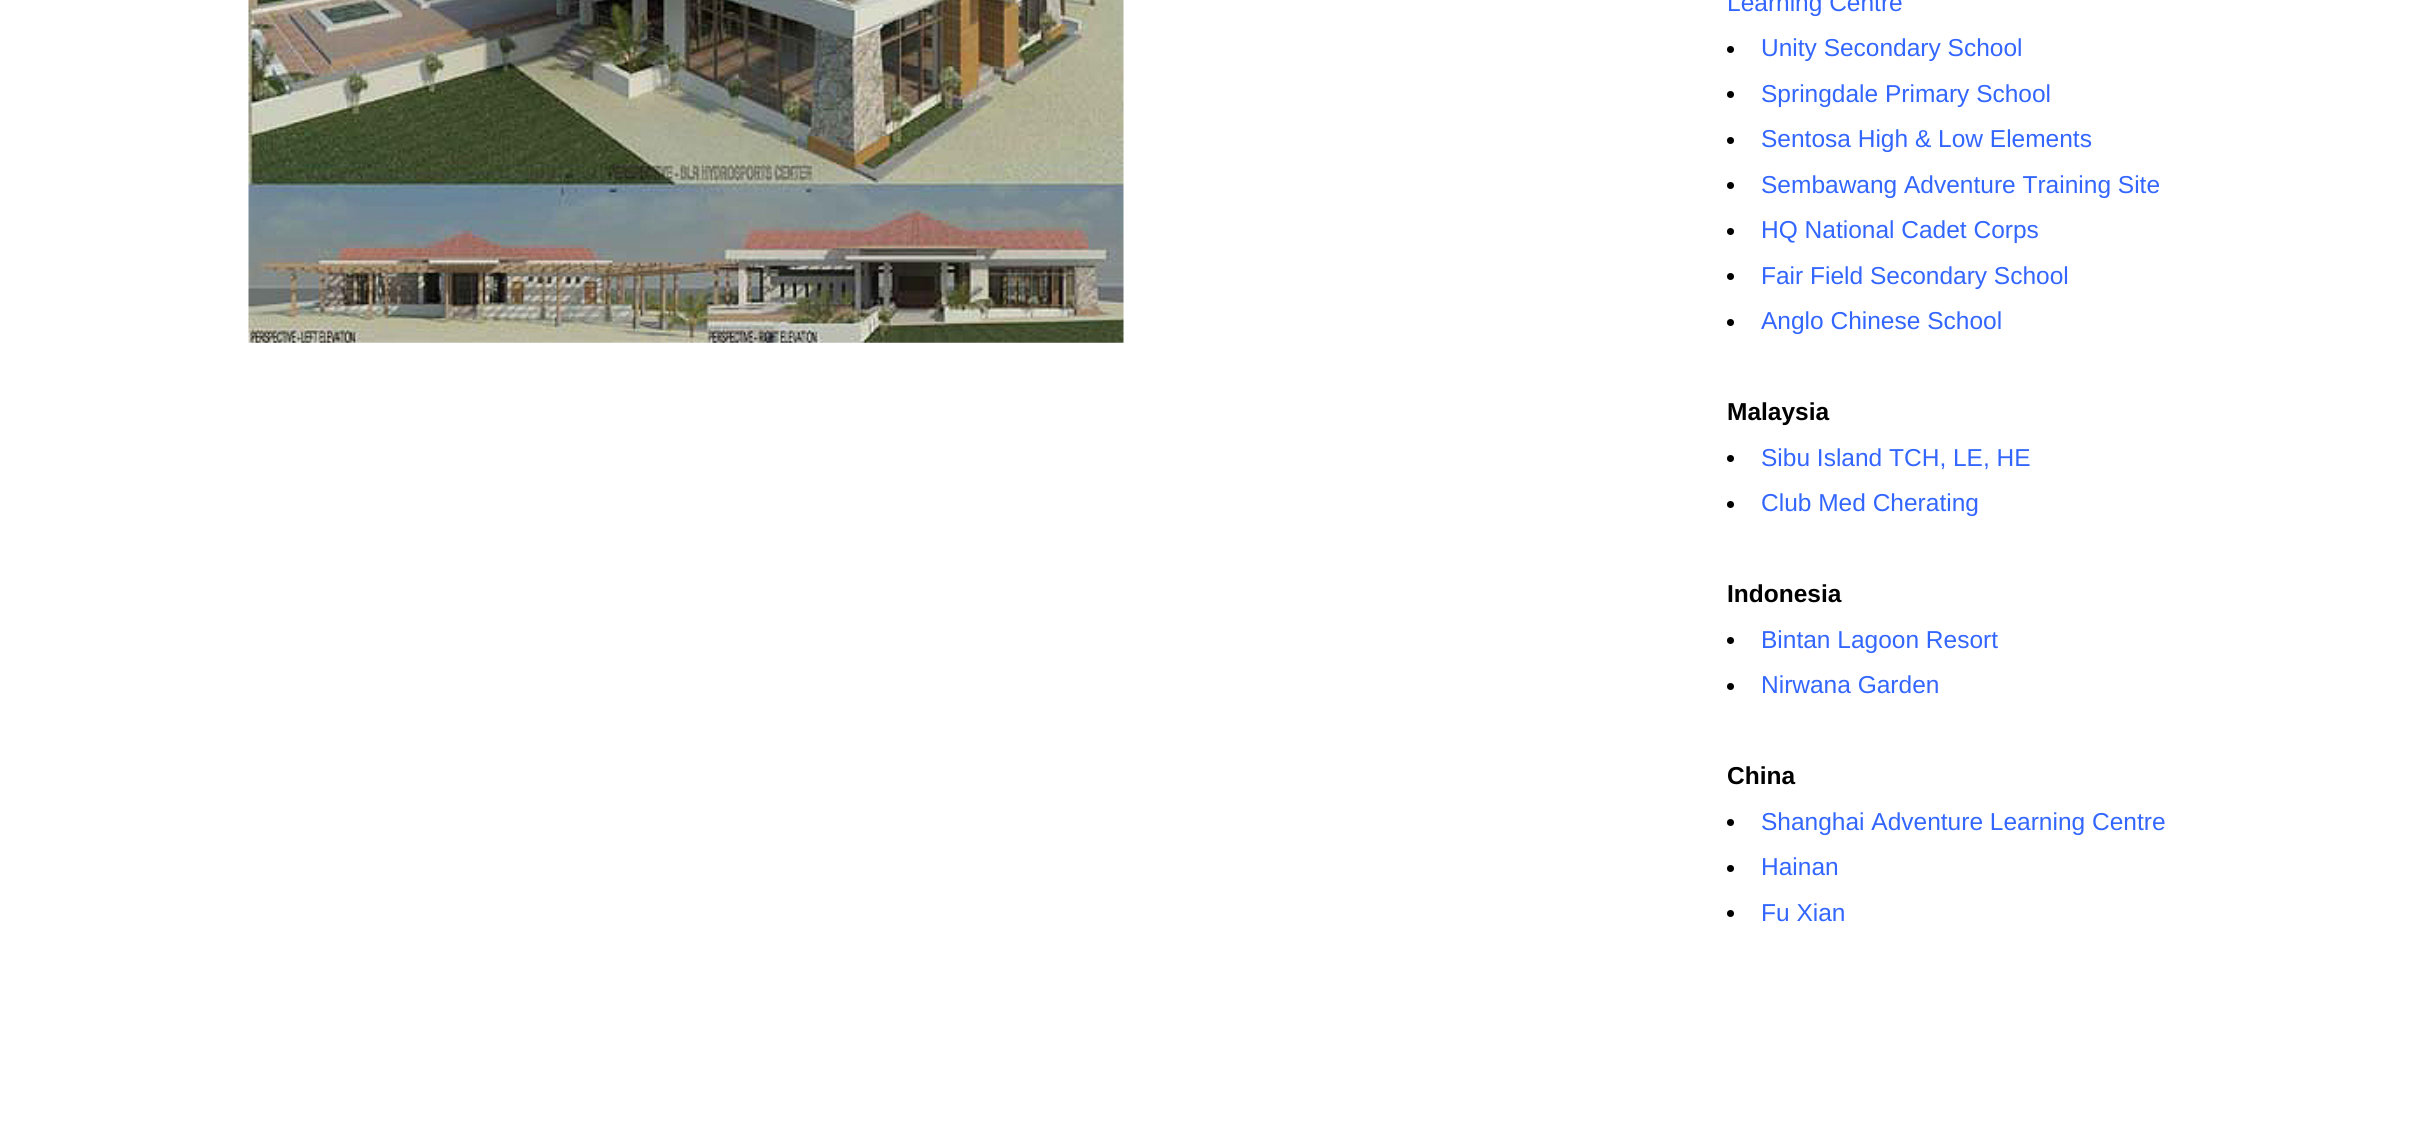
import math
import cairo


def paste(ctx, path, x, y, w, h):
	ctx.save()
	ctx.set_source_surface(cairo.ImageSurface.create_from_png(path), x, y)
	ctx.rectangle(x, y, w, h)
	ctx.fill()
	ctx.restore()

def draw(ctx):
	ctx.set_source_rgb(1, 1, 1)
	ctx.paint()
	paste(ctx, 'media/1.png', 248, 0, 876, 343)
	ctx.select_font_face('Liberation Sans')
	ctx.set_font_size(24.5)
	ctx.set_source_rgb(0.2, 0.4, 1)
	ctx.move_to(1727, 11)
	ctx.show_text('Learning Centre')
	ctx.set_source_rgb(0, 0, 0)
	ctx.new_path()
	ctx.arc(1730.5, 49.5, 3.5, 0, 2 * math.pi)
	ctx.fill()
	ctx.set_source_rgb(0.2, 0.4, 1)
	ctx.move_to(1761, 56)
	ctx.show_text('Unity Secondary School')
	ctx.set_source_rgb(0, 0, 0)
	ctx.new_path()
	ctx.arc(1730.5, 94.5, 3.5, 0, 2 * math.pi)
	ctx.fill()
	ctx.set_source_rgb(0.2, 0.4, 1)
	ctx.move_to(1761, 102)
	ctx.show_text('Springdale Primary School')
	ctx.set_source_rgb(0, 0, 0)
	ctx.new_path()
	ctx.arc(1730.5, 140.5, 3.5, 0, 2 * math.pi)
	ctx.fill()
	ctx.set_source_rgb(0.2, 0.4, 1)
	ctx.move_to(1761, 147)
	ctx.show_text('Sentosa High & Low Elements')
	ctx.set_source_rgb(0, 0, 0)
	ctx.new_path()
	ctx.arc(1730.5, 185.5, 3.5, 0, 2 * math.pi)
	ctx.fill()
	ctx.set_source_rgb(0.2, 0.4, 1)
	ctx.move_to(1761, 193)
	ctx.show_text('Sembawang Adventure Training Site')
	ctx.set_source_rgb(0, 0, 0)
	ctx.new_path()
	ctx.arc(1730.5, 231.5, 3.5, 0, 2 * math.pi)
	ctx.fill()
	ctx.set_source_rgb(0.2, 0.4, 1)
	ctx.move_to(1761, 238)
	ctx.show_text('HQ National Cadet Corps')
	ctx.set_source_rgb(0, 0, 0)
	ctx.new_path()
	ctx.arc(1730.5, 276.5, 3.5, 0, 2 * math.pi)
	ctx.fill()
	ctx.set_source_rgb(0.2, 0.4, 1)
	ctx.move_to(1761, 284)
	ctx.show_text('Fair Field Secondary School')
	ctx.set_source_rgb(0, 0, 0)
	ctx.new_path()
	ctx.arc(1730.5, 322.5, 3.5, 0, 2 * math.pi)
	ctx.fill()
	ctx.set_source_rgb(0.2, 0.4, 1)
	ctx.move_to(1761, 329)
	ctx.show_text('Anglo Chinese School')
	ctx.select_font_face('Liberation Sans', cairo.FONT_SLANT_NORMAL, cairo.FONT_WEIGHT_BOLD)
	ctx.set_source_rgb(0, 0, 0)
	ctx.move_to(1727, 420)
	ctx.show_text('Malaysia')
	ctx.new_path()
	ctx.arc(1730.5, 458.5, 3.5, 0, 2 * math.pi)
	ctx.fill()
	ctx.select_font_face('Liberation Sans')
	ctx.set_source_rgb(0.2, 0.4, 1)
	ctx.move_to(1761, 466)
	ctx.show_text('Sibu Island TCH, LE, HE')
	ctx.set_source_rgb(0, 0, 0)
	ctx.new_path()
	ctx.arc(1730.5, 504.5, 3.5, 0, 2 * math.pi)
	ctx.fill()
	ctx.set_source_rgb(0.2, 0.4, 1)
	ctx.move_to(1761, 511)
	ctx.show_text('Club Med Cherating')
	ctx.select_font_face('Liberation Sans', cairo.FONT_SLANT_NORMAL, cairo.FONT_WEIGHT_BOLD)
	ctx.set_source_rgb(0, 0, 0)
	ctx.move_to(1727, 602)
	ctx.show_text('Indonesia')
	ctx.new_path()
	ctx.arc(1730.5, 640.5, 3.5, 0, 2 * math.pi)
	ctx.fill()
	ctx.select_font_face('Liberation Sans')
	ctx.set_source_rgb(0.2, 0.4, 1)
	ctx.move_to(1761, 648)
	ctx.show_text('Bintan Lagoon Resort')
	ctx.set_source_rgb(0, 0, 0)
	ctx.new_path()
	ctx.arc(1730.5, 686.5, 3.5, 0, 2 * math.pi)
	ctx.fill()
	ctx.set_source_rgb(0.2, 0.4, 1)
	ctx.move_to(1761, 693)
	ctx.show_text('Nirwana Garden')
	ctx.select_font_face('Liberation Sans', cairo.FONT_SLANT_NORMAL, cairo.FONT_WEIGHT_BOLD)
	ctx.set_source_rgb(0, 0, 0)
	ctx.move_to(1727, 784)
	ctx.show_text('China')
	ctx.new_path()
	ctx.arc(1730.5, 822.5, 3.5, 0, 2 * math.pi)
	ctx.fill()
	ctx.select_font_face('Liberation Sans')
	ctx.set_source_rgb(0.2, 0.4, 1)
	ctx.move_to(1761, 830)
	ctx.show_text('Shanghai Adventure Learning Centre')
	ctx.set_source_rgb(0, 0, 0)
	ctx.new_path()
	ctx.arc(1730.5, 868.5, 3.5, 0, 2 * math.pi)
	ctx.fill()
	ctx.set_source_rgb(0.2, 0.4, 1)
	ctx.move_to(1761, 875)
	ctx.show_text('Hainan')
	ctx.set_source_rgb(0, 0, 0)
	ctx.new_path()
	ctx.arc(1730.5, 913.5, 3.5, 0, 2 * math.pi)
	ctx.fill()
	ctx.set_source_rgb(0.2, 0.4, 1)
	ctx.move_to(1761, 921)
	ctx.show_text('Fu Xian')


surface = cairo.ImageSurface(cairo.FORMAT_RGB24, 2422, 1143)
ctx = cairo.Context(surface)
options = cairo.FontOptions()
options.set_hint_metrics(cairo.HINT_METRICS_OFF)
options.set_hint_style(cairo.HINT_STYLE_NONE)
ctx.set_font_options(options)
ctx.set_miter_limit(4)
draw(ctx)
surface.write_to_png('image.png')
